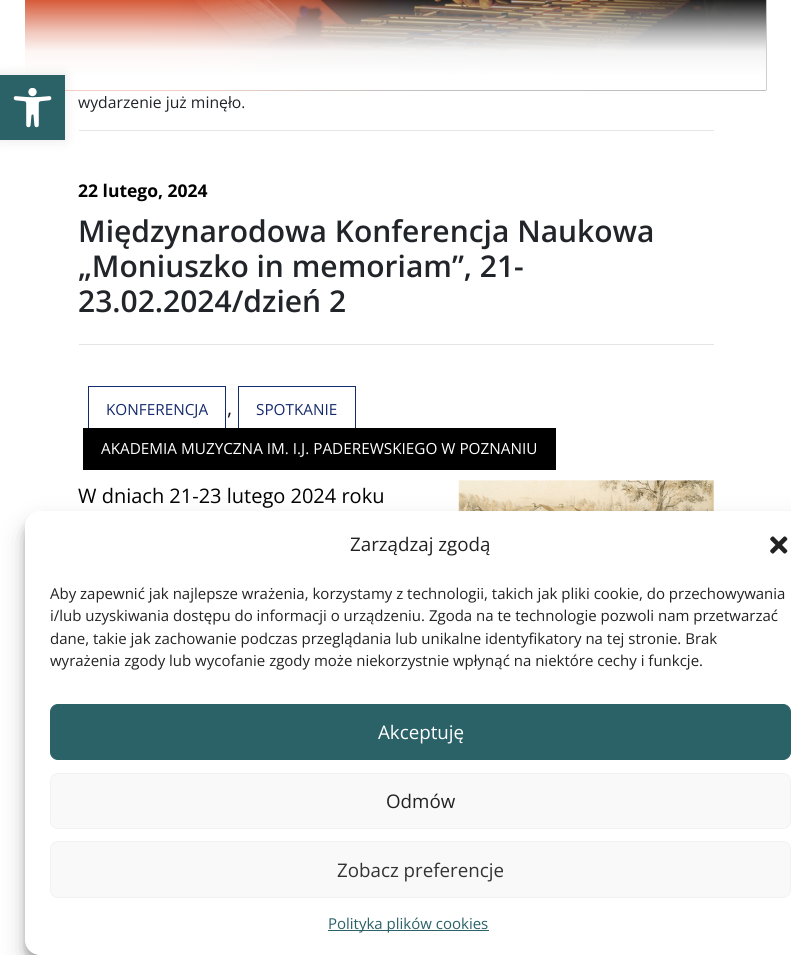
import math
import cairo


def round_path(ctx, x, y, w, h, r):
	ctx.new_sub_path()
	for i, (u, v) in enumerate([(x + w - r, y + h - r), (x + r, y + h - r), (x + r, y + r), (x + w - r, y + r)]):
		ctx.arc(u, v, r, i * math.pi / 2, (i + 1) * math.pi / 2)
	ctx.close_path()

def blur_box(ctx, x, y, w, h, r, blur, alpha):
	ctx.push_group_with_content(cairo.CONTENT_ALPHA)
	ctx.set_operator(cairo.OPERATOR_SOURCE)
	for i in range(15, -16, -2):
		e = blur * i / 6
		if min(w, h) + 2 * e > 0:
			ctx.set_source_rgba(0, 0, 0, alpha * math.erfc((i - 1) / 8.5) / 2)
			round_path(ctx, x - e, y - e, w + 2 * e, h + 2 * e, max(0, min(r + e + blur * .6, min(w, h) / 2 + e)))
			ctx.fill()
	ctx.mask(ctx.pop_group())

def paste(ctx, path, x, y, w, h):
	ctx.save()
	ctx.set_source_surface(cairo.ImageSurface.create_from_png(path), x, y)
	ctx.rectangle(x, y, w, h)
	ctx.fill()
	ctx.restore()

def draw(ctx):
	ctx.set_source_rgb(1, 1, 1)
	ctx.paint()
	paste(ctx, 'media/1.png', 25, 0, 742, 91)
	ctx.set_source_rgb(0.894, 0.894, 0.894)
	ctx.rectangle(79, 130, 635, 1)
	ctx.fill()
	ctx.set_source_rgb(0, 0, 0)
	blur_box(ctx, 0, 75, 65, 65, 0, 6, 0.1)
	ctx.set_source_rgb(0.169, 0.384, 0.408)
	ctx.rectangle(0, 75, 65, 65)
	ctx.fill()
	paste(ctx, 'media/2.png', 13, 88, 39, 40)
	ctx.select_font_face('Open Sans')
	ctx.set_font_size(15.75)
	ctx.set_source_rgb(0.129, 0.145, 0.161)
	ctx.move_to(78, 108)
	ctx.show_text('wydarzenie już minęło.')
	ctx.select_font_face('Open Sans', cairo.FONT_SLANT_NORMAL, cairo.FONT_WEIGHT_BOLD)
	ctx.set_font_size(17.5)
	ctx.set_source_rgb(0, 0, 0)
	ctx.move_to(78, 197)
	ctx.show_text('22 lutego, 2024')
	ctx.select_font_face('Open Sans SemiBold')
	ctx.set_font_size(30)
	ctx.set_source_rgb(0.129, 0.145, 0.161)
	for x, y, s in [
		(78, 242, 'Międzynarodowa Konferencja Naukowa'),
		(78, 277, '„Moniuszko in memoriam”, 21-'),
		(78, 312, '23.02.2024/dzień 2'),
	]:
		ctx.move_to(x, y)
		ctx.show_text(s)
	ctx.set_source_rgb(0.894, 0.894, 0.894)
	ctx.rectangle(79, 344, 635, 1)
	ctx.fill()
	ctx.rectangle(88.5, 386.5, 137, 46)
	ctx.set_source_rgb(0.086, 0.169, 0.427)
	ctx.set_line_width(1)
	ctx.stroke()
	ctx.select_font_face('Open Sans')
	ctx.set_font_size(15.3)
	ctx.move_to(106, 415)
	ctx.show_text('KONFERENCJA')
	ctx.set_font_size(20)
	ctx.set_source_rgb(0.078, 0.094, 0.153)
	ctx.move_to(227, 415)
	ctx.show_text(',')
	ctx.rectangle(238.5, 386.5, 117, 46)
	ctx.set_source_rgb(0.086, 0.169, 0.427)
	ctx.stroke()
	ctx.set_font_size(15.3)
	ctx.move_to(256, 415)
	ctx.show_text('SPOTKANIE')
	ctx.set_source_rgb(0, 0, 0)
	ctx.rectangle(83, 428, 473, 42)
	ctx.fill()
	ctx.set_source_rgb(1, 1, 1)
	ctx.move_to(101, 454)
	ctx.show_text('AKADEMIA MUZYCZNA IM. I.J. PADEREWSKIEGO W POZNANIU')
	ctx.set_font_size(20)
	ctx.set_source_rgb(0, 0, 0)
	ctx.move_to(78, 503)
	ctx.show_text('W dniach 21-23 lutego 2024 roku')
	paste(ctx, 'media/3.png', 458, 480, 256, 31)
	ctx.set_source_rgb(0, 0, 0)
	blur_box(ctx, 25, 519, 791, 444, 15, 4, 0.23)
	blur_box(ctx, 25, 524, 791, 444, 15, 12.5, 0.19)
	ctx.set_source_rgb(1, 1, 1)
	round_path(ctx, 25, 511, 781, 444, 15)
	ctx.fill()
	ctx.set_font_size(18.75)
	ctx.set_source_rgb(0.133, 0.133, 0.133)
	ctx.move_to(350, 551)
	ctx.show_text('Zarządzaj zgodą')
	paste(ctx, 'media/4.png', 770, 536, 18, 18)
	ctx.set_font_size(15)
	for x, y, s in [
		(50, 599, 'Aby zapewnić jak najlepsze wrażenia, korzystamy z technologii, takich jak pliki cookie, do przechowywania'),
		(50, 621, 'i/lub uzyskiwania dostępu do informacji o urządzeniu. Zgoda na te technologie pozwoli nam przetwarzać'),
		(50, 644, 'dane, takie jak zachowanie podczas przeglądania lub unikalne identyfikatory na tej stronie. Brak'),
		(50, 666, 'wyrażenia zgody lub wycofanie zgody może niekorzystnie wpłynąć na niektóre cechy i funkcje.'),
	]:
		ctx.move_to(x, y)
		ctx.show_text(s)
	ctx.set_source_rgb(0.169, 0.384, 0.408)
	round_path(ctx, 50.5, 704.5, 740, 55, 7.5)
	ctx.fill_preserve()
	ctx.stroke()
	ctx.set_font_size(18.75)
	ctx.set_source_rgb(1, 1, 1)
	ctx.move_to(378, 739)
	ctx.show_text('Akceptuję')
	ctx.set_source_rgb(0.976, 0.976, 0.976)
	round_path(ctx, 50.5, 773.5, 740, 55, 7.5)
	ctx.fill_preserve()
	ctx.set_source_rgb(0.949, 0.949, 0.949)
	ctx.stroke()
	ctx.set_source_rgb(0.133, 0.133, 0.133)
	ctx.move_to(386, 808)
	ctx.show_text('Odmów')
	ctx.set_source_rgb(0.976, 0.976, 0.976)
	round_path(ctx, 50.5, 841.5, 740, 56, 7.5)
	ctx.fill_preserve()
	ctx.set_source_rgb(0.949, 0.949, 0.949)
	ctx.stroke()
	ctx.set_source_rgb(0.2, 0.2, 0.2)
	ctx.move_to(337, 877)
	ctx.show_text('Zobacz preferencje')
	ctx.set_source_rgb(0.169, 0.384, 0.408)
	ctx.rectangle(328, 930, 161, 1)
	ctx.fill()
	ctx.set_font_size(15)
	ctx.move_to(328, 929)
	ctx.show_text('Polityka plików cookies')


surface = cairo.ImageSurface(cairo.FORMAT_RGB24, 791, 955)
ctx = cairo.Context(surface)
options = cairo.FontOptions()
options.set_hint_metrics(cairo.HINT_METRICS_OFF)
options.set_hint_style(cairo.HINT_STYLE_NONE)
ctx.set_font_options(options)
ctx.set_miter_limit(4)
draw(ctx)
surface.write_to_png('image.png')
